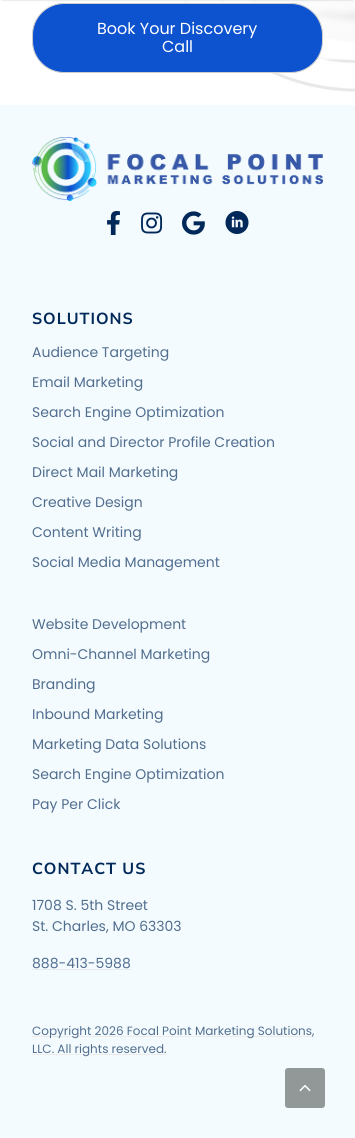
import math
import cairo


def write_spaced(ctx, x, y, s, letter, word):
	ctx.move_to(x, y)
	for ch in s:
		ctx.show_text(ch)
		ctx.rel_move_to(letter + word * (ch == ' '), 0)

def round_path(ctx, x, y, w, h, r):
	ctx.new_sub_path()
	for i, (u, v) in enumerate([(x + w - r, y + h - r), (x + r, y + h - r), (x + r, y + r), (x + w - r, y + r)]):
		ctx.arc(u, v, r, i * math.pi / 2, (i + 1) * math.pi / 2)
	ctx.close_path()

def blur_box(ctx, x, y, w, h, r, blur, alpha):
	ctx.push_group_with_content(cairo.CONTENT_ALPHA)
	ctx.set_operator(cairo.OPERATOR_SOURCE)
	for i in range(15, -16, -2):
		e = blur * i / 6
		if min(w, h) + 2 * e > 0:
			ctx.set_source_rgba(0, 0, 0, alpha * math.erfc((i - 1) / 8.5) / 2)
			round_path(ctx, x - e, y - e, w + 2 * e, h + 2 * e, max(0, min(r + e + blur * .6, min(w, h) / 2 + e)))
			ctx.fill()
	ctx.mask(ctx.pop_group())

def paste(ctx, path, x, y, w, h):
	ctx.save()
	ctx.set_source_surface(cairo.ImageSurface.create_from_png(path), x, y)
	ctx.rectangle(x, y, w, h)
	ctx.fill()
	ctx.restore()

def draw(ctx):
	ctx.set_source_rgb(1, 1, 1)
	ctx.paint()
	paste(ctx, 'media/1.png', 183, 0, 172, 92)
	ctx.set_source_rgb(0.051, 0.325, 0.812)
	round_path(ctx, 32.5, 3.5, 290, 69, 31.5)
	ctx.fill_preserve()
	ctx.set_source_rgb(0.8, 0.8, 0.8)
	ctx.set_line_width(1)
	ctx.stroke()
	ctx.set_source_rgb(0, 0, 0)
	blur_box(ctx, 2, -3, 351, 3, 0, 1, 0.2)
	ctx.select_font_face('Poppins')
	ctx.set_font_size(16)
	ctx.set_source_rgb(1, 1, 1)
	ctx.move_to(97, 34)
	ctx.show_text('Book Your Discovery')
	ctx.move_to(162, 52)
	ctx.show_text('Call')
	ctx.set_source_rgb(0.957, 0.984, 0.996)
	ctx.rectangle(0, 105, 355, 1033)
	ctx.fill()
	paste(ctx, 'media/2.png', 32, 137, 291, 64)
	paste(ctx, 'media/3.png', 107, 211, 13, 24)
	paste(ctx, 'media/4.png', 141, 212, 22, 22)
	paste(ctx, 'media/5.png', 182, 211, 23, 24)
	paste(ctx, 'media/6.png', 225, 211, 24, 23)
	ctx.select_font_face('Nunito Sans', cairo.FONT_SLANT_NORMAL, cairo.FONT_WEIGHT_BOLD)
	ctx.set_source_rgb(0, 0.157, 0.349)
	write_spaced(ctx, 32, 324, 'SOLUTIONS', 1, 0)
	ctx.select_font_face('Poppins')
	ctx.set_font_size(14)
	ctx.set_source_rgb(0.318, 0.431, 0.561)
	for x, y, s in [
		(32, 357, 'Audience Targeting'),
		(32, 387, 'Email Marketing'),
		(32, 417, 'Search Engine Optimization'),
		(32, 447, 'Social and Director Profile Creation'),
		(32, 477, 'Direct Mail Marketing'),
		(32, 507, 'Creative Design'),
		(32, 537, 'Content Writing'),
		(32, 567, 'Social Media Management'),
		(32, 629, 'Website Development'),
		(32, 659, 'Omni-Channel Marketing'),
		(32, 689, 'Branding'),
		(32, 719, 'Inbound Marketing'),
		(32, 749, 'Marketing Data Solutions'),
		(32, 779, 'Search Engine Optimization'),
		(32, 809, 'Pay Per Click'),
	]:
		ctx.move_to(x, y)
		ctx.show_text(s)
	ctx.select_font_face('Nunito Sans', cairo.FONT_SLANT_NORMAL, cairo.FONT_WEIGHT_BOLD)
	ctx.set_font_size(16)
	ctx.set_source_rgb(0, 0.157, 0.349)
	write_spaced(ctx, 32, 874, 'CONTACT US', 1, 0)
	ctx.select_font_face('Poppins')
	ctx.set_font_size(14)
	ctx.set_source_rgb(0.318, 0.431, 0.561)
	for x, y, s in [
		(32, 910, '1708 S. 5th Street'),
		(32, 931, 'St. Charles, MO 63303'),
		(32, 968, '888-413-5988'),
	]:
		ctx.move_to(x, y)
		ctx.show_text(s)
	ctx.set_source_rgb(0.918, 0.918, 0.918)
	ctx.rectangle(32, 969, 99, 1)
	ctx.fill()
	ctx.rectangle(32, 1036, 282, 1)
	ctx.fill()
	ctx.set_font_size(12)
	ctx.set_source_rgb(0.318, 0.431, 0.561)
	ctx.move_to(32, 1035)
	ctx.show_text('Copyright 2026 Focal Point Marketing Solutions,')
	ctx.set_source_rgb(0.918, 0.918, 0.918)
	ctx.rectangle(32, 1054, 135, 1)
	ctx.fill()
	ctx.set_source_rgb(0.318, 0.431, 0.561)
	ctx.move_to(32, 1053)
	ctx.show_text('LLC. All rights reserved.')
	ctx.set_source_rgb(0.573, 0.592, 0.596)
	round_path(ctx, 285, 1068, 40, 40, 3)
	ctx.fill()
	paste(ctx, 'media/7.png', 299, 1084, 12, 8)


surface = cairo.ImageSurface(cairo.FORMAT_RGB24, 355, 1138)
ctx = cairo.Context(surface)
options = cairo.FontOptions()
options.set_hint_metrics(cairo.HINT_METRICS_OFF)
options.set_hint_style(cairo.HINT_STYLE_NONE)
ctx.set_font_options(options)
ctx.set_miter_limit(4)
draw(ctx)
surface.write_to_png('image.png')
